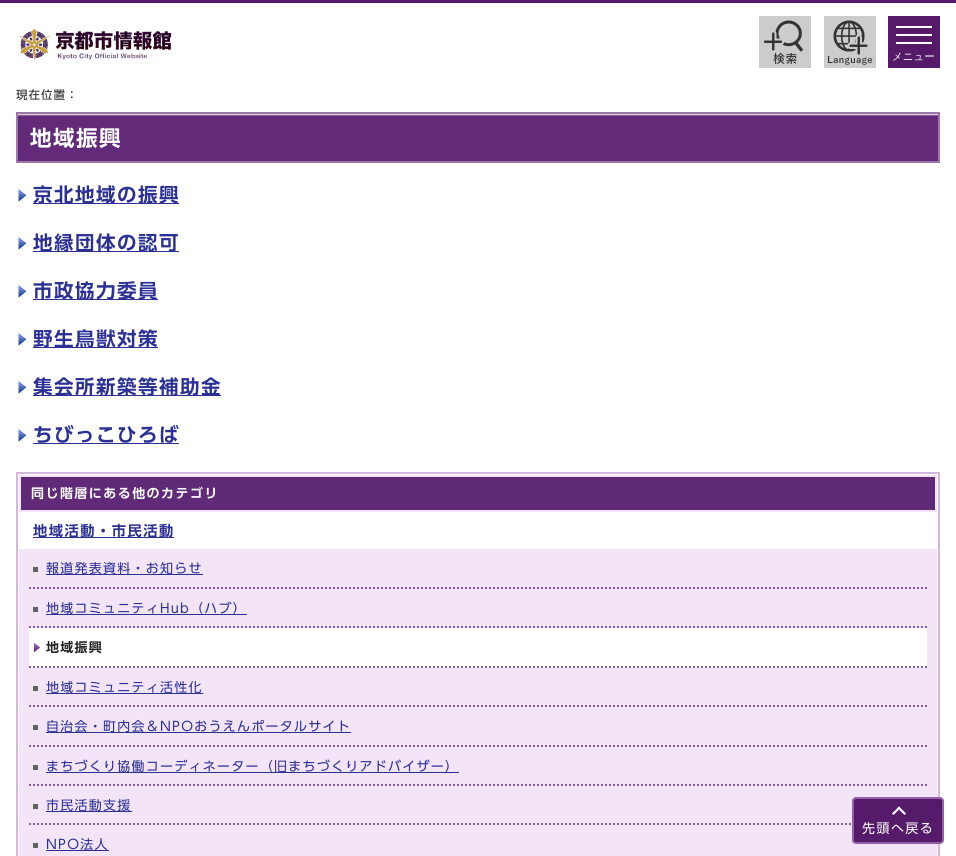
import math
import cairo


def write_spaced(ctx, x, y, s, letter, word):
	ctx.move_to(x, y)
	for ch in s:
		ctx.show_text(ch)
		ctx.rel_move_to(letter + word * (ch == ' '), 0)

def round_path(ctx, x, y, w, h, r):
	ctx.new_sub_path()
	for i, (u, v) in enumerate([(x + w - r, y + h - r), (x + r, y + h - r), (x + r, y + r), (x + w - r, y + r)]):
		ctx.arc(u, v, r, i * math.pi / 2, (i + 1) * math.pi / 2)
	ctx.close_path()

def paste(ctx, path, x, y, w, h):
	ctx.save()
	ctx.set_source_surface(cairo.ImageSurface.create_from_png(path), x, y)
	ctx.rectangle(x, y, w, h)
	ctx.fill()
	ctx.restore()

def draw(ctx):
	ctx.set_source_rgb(1, 1, 1)
	ctx.paint()
	ctx.set_source_rgb(0.333, 0.102, 0.416)
	ctx.rectangle(0, 0, 956, 3)
	ctx.fill()
	paste(ctx, 'media/1.png', 18, 28, 154, 35)
	paste(ctx, 'media/2.png', 759, 16, 52, 52)
	paste(ctx, 'media/3.png', 824, 16, 52, 52)
	ctx.rectangle(888, 16, 52, 52)
	ctx.fill()
	ctx.set_source_rgb(1, 1, 1)
	ctx.rectangle(896, 34, 36, 2)
	ctx.rectangle(896, 26, 36, 2)
	ctx.rectangle(896, 42, 36, 2)
	ctx.fill()
	ctx.select_font_face('WenQuanYi Zen Hei Medium')
	ctx.set_font_size(10.5)
	ctx.move_to(892, 60)
	ctx.show_text('メニュー')
	ctx.select_font_face('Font')
	ctx.set_font_size(11.5)
	ctx.set_source_rgb(0.133, 0.133, 0.133)
	write_spaced(ctx, 16, 99, '現在位置：', 1, 0)
	ctx.set_source_rgb(0.384, 0.165, 0.471)
	ctx.rectangle(18, 116, 920, 45)
	ctx.fill()
	paste(ctx, 'media/4.png', 18, 114, 920, 2)
	ctx.rectangle(17, 113, 922, 49)
	ctx.set_source_rgb(0.612, 0.471, 0.667)
	ctx.stroke()
	ctx.select_font_face('Font SemiBold')
	ctx.set_font_size(21.5)
	ctx.set_source_rgb(1, 1, 1)
	write_spaced(ctx, 30, 146, '地域振興', 1.5, 0)
	paste(ctx, 'media/5.png', 18, 189, 9, 13)
	ctx.set_source_rgb(0.169, 0.188, 0.584)
	ctx.rectangle(33, 203, 146, 1)
	ctx.fill()
	ctx.set_font_size(19.5)
	write_spaced(ctx, 33, 202, '京北地域の振興', 1.5, 0)
	paste(ctx, 'media/5.png', 18, 237, 9, 13)
	ctx.rectangle(33, 251, 146, 1)
	ctx.fill()
	write_spaced(ctx, 33, 250, '地縁団体の認可', 1.5, 0)
	paste(ctx, 'media/5.png', 18, 285, 9, 13)
	ctx.rectangle(33, 299, 125, 1)
	ctx.fill()
	write_spaced(ctx, 33, 298, '市政協力委員', 1.5, 0)
	paste(ctx, 'media/5.png', 18, 333, 9, 13)
	ctx.rectangle(33, 347, 125, 1)
	ctx.fill()
	write_spaced(ctx, 33, 346, '野生鳥獣対策', 1.5, 0)
	paste(ctx, 'media/5.png', 18, 381, 9, 13)
	ctx.rectangle(33, 395, 188, 1)
	ctx.fill()
	write_spaced(ctx, 33, 394, '集会所新築等補助金', 1.5, 0)
	paste(ctx, 'media/5.png', 18, 429, 9, 13)
	write_spaced(ctx, 33, 442, 'ちびっこひろば', 1.5, 0)
	ctx.rectangle(33, 443, 146, 1)
	ctx.fill()
	ctx.rectangle(17, 473, 922, 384)
	ctx.set_source_rgb(0.831, 0.718, 0.859)
	ctx.stroke()
	ctx.set_source_rgb(0.38, 0.165, 0.471)
	ctx.rectangle(20, 476, 916, 35)
	ctx.fill_preserve()
	ctx.set_source_rgb(0.953, 0.898, 0.965)
	ctx.stroke()
	ctx.set_font_size(12.95)
	ctx.set_source_rgb(1, 1, 1)
	write_spaced(ctx, 31, 498, '同じ階層にある他のカテゴリ', 1.5, 0)
	ctx.set_source_rgb(0.169, 0.188, 0.584)
	ctx.rectangle(33, 537, 141, 1)
	ctx.fill()
	ctx.set_font_size(14.25)
	write_spaced(ctx, 33, 536, '地域活動・市民活動', 1.5, 0)
	ctx.set_source_rgb(0.953, 0.898, 0.965)
	ctx.rectangle(19, 549, 918, 307)
	ctx.fill()
	ctx.set_source_rgb(0.38, 0.38, 0.38)
	ctx.rectangle(33, 567, 5, 5)
	ctx.fill()
	ctx.new_path()
	ctx.move_to(29, 588)
	ctx.line_to(927, 588)
	ctx.set_source_rgb(0.525, 0.361, 0.592)
	ctx.set_dash([2, 2])
	ctx.stroke()
	ctx.set_source_rgb(0.169, 0.188, 0.584)
	ctx.rectangle(46, 574, 157, 1)
	ctx.fill()
	ctx.select_font_face('Font')
	ctx.set_font_size(12.95)
	write_spaced(ctx, 46, 573, '報道発表資料・お知らせ', 1.3, 0)
	ctx.set_source_rgb(0.38, 0.38, 0.38)
	ctx.rectangle(33, 607, 5, 5)
	ctx.fill()
	ctx.new_path()
	ctx.move_to(29, 627)
	ctx.line_to(927, 627)
	ctx.set_source_rgb(0.525, 0.361, 0.592)
	ctx.stroke()
	ctx.set_source_rgb(0.169, 0.188, 0.584)
	ctx.rectangle(46, 614, 201, 1)
	ctx.fill()
	write_spaced(ctx, 46, 613, '地域コミュニティHub（ハブ）', 1.3, 0)
	ctx.set_source_rgb(1, 1, 1)
	ctx.rectangle(29, 628, 898, 40)
	ctx.fill()
	paste(ctx, 'media/6.png', 34, 643, 6, 9)
	ctx.new_path()
	ctx.move_to(29, 667)
	ctx.line_to(927, 667)
	ctx.set_source_rgb(0.525, 0.361, 0.592)
	ctx.stroke()
	ctx.select_font_face('Font SemiBold')
	ctx.set_source_rgb(0.133, 0.133, 0.133)
	write_spaced(ctx, 46, 652, '地域振興', 1.3, 0)
	ctx.set_source_rgb(0.38, 0.38, 0.38)
	ctx.rectangle(33, 686, 5, 5)
	ctx.fill()
	ctx.new_path()
	ctx.move_to(29, 706)
	ctx.line_to(927, 706)
	ctx.set_source_rgb(0.525, 0.361, 0.592)
	ctx.stroke()
	ctx.set_source_rgb(0.169, 0.188, 0.584)
	ctx.rectangle(46, 693, 157, 1)
	ctx.fill()
	ctx.select_font_face('Font')
	write_spaced(ctx, 46, 692, '地域コミュニティ活性化', 1.3, 0)
	ctx.set_source_rgb(0.38, 0.38, 0.38)
	ctx.rectangle(33, 725, 5, 5)
	ctx.fill()
	ctx.new_path()
	ctx.move_to(29, 746)
	ctx.line_to(927, 746)
	ctx.set_source_rgb(0.525, 0.361, 0.592)
	ctx.stroke()
	ctx.set_source_rgb(0.169, 0.188, 0.584)
	ctx.rectangle(46, 732, 305, 1)
	ctx.fill()
	write_spaced(ctx, 46, 731, '自治会・町内会＆NPOおうえんポータルサイト', 1.3, 0)
	ctx.set_source_rgb(0.38, 0.38, 0.38)
	ctx.rectangle(33, 765, 5, 5)
	ctx.fill()
	ctx.new_path()
	ctx.move_to(29, 785)
	ctx.line_to(927, 785)
	ctx.set_source_rgb(0.525, 0.361, 0.592)
	ctx.stroke()
	ctx.set_source_rgb(0.169, 0.188, 0.584)
	ctx.rectangle(46, 772, 413, 1)
	ctx.fill()
	write_spaced(ctx, 46, 771, 'まちづくり協働コーディネーター（旧まちづくりアドバイザー）', 1.3, 0)
	ctx.set_source_rgb(0.38, 0.38, 0.38)
	ctx.rectangle(33, 804, 5, 5)
	ctx.fill()
	ctx.new_path()
	ctx.move_to(29, 824)
	ctx.line_to(927, 824)
	ctx.set_source_rgb(0.525, 0.361, 0.592)
	ctx.stroke()
	ctx.set_source_rgb(0.169, 0.188, 0.584)
	ctx.rectangle(46, 811, 86, 1)
	ctx.fill()
	write_spaced(ctx, 46, 810, '市民活動支援', 1.3, 0)
	ctx.set_source_rgb(0.38, 0.38, 0.38)
	ctx.rectangle(33, 843, 5, 5)
	ctx.fill()
	ctx.set_source_rgb(0.169, 0.188, 0.584)
	ctx.rectangle(46, 850, 63, 1)
	ctx.fill()
	write_spaced(ctx, 46, 849, 'NPO法人', 1.3, 0)
	ctx.set_source_rgb(0.333, 0.102, 0.416)
	round_path(ctx, 853, 798, 90, 45, 3)
	ctx.fill_preserve()
	ctx.set_source_rgb(0.588, 0.373, 0.667)
	ctx.set_dash([])
	ctx.stroke()
	ctx.set_source_rgb(1, 1, 1)
	ctx.new_path()
	ctx.move_to(893.5, 815)
	ctx.line_to(892, 813.5)
	ctx.line_to(899, 806.5)
	ctx.line_to(900.5, 808)
	ctx.close_path()
	ctx.fill()
	ctx.new_path()
	ctx.move_to(904.5, 815)
	ctx.line_to(897.5, 808)
	ctx.line_to(899, 806.5)
	ctx.line_to(906, 813.5)
	ctx.close_path()
	ctx.fill()
	write_spaced(ctx, 862, 833, '先頭へ戻る', 1.5, 0)


surface = cairo.ImageSurface(cairo.FORMAT_RGB24, 956, 856)
ctx = cairo.Context(surface)
options = cairo.FontOptions()
options.set_hint_metrics(cairo.HINT_METRICS_OFF)
options.set_hint_style(cairo.HINT_STYLE_NONE)
ctx.set_font_options(options)
ctx.set_miter_limit(4)
draw(ctx)
surface.write_to_png('image.png')
